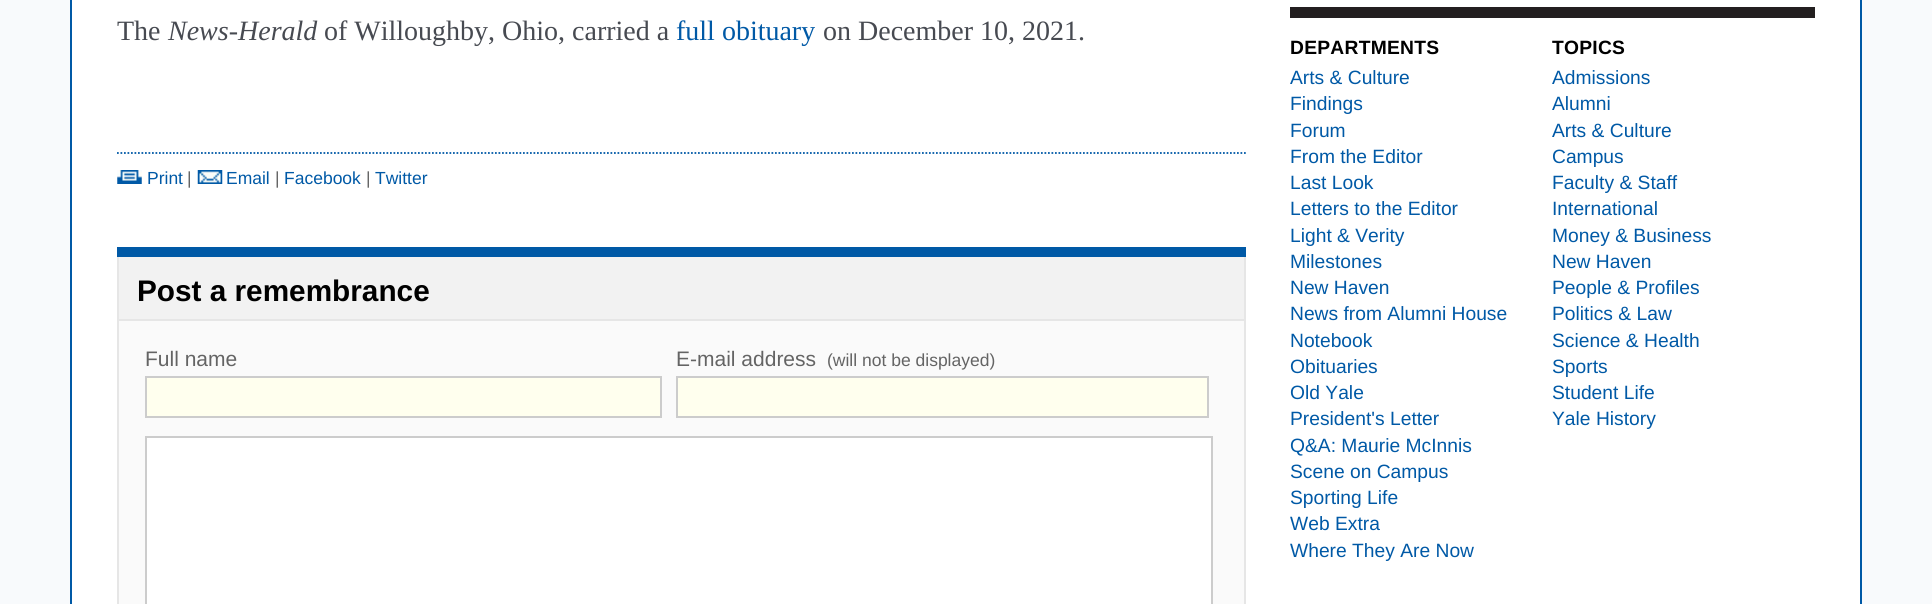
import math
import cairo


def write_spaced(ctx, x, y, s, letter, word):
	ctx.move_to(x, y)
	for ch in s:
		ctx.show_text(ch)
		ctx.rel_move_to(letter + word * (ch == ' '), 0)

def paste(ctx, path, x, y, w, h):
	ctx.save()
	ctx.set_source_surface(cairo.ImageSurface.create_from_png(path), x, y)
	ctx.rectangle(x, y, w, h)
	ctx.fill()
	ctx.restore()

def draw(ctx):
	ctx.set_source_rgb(0.969, 0.98, 0.988)
	ctx.paint()
	ctx.set_source_rgb(1, 1, 1)
	ctx.rectangle(72, 0, 1788, 604)
	ctx.fill()
	ctx.set_source_rgb(0, 0.349, 0.651)
	ctx.rectangle(1860, 0, 2, 604)
	ctx.rectangle(70, 0, 2, 604)
	ctx.fill()
	ctx.select_font_face('Liberation Serif')
	ctx.set_font_size(28)
	ctx.set_source_rgb(0.278, 0.29, 0.318)
	ctx.move_to(117, 40)
	ctx.show_text('The')
	ctx.select_font_face('Liberation Serif', cairo.FONT_SLANT_ITALIC)
	ctx.move_to(168, 40)
	ctx.show_text('News-Herald')
	ctx.select_font_face('Liberation Serif')
	ctx.move_to(324, 40)
	ctx.show_text('of Willoughby, Ohio, carried a')
	ctx.set_source_rgb(0, 0.349, 0.651)
	ctx.move_to(676, 40)
	ctx.show_text('full obituary')
	ctx.set_source_rgb(0.278, 0.29, 0.318)
	ctx.move_to(823, 40)
	ctx.show_text('on December 10, 2021.')
	ctx.new_path()
	ctx.move_to(117, 153)
	ctx.line_to(1246, 153)
	ctx.set_source_rgb(0, 0.349, 0.651)
	ctx.set_line_width(1.8)
	ctx.set_dash([1.75, 1.75])
	ctx.stroke()
	paste(ctx, 'media/1.png', 117, 170, 25, 14)
	ctx.select_font_face('Liberation Sans')
	ctx.set_font_size(17.5)
	ctx.move_to(147, 184)
	ctx.show_text('Print')
	ctx.set_source_rgb(0.392, 0.392, 0.392)
	ctx.move_to(187, 184)
	ctx.show_text('|')
	paste(ctx, 'media/2.png', 197, 170, 26, 14)
	ctx.set_source_rgb(0, 0.349, 0.651)
	ctx.move_to(226, 184)
	ctx.show_text('Email')
	ctx.set_source_rgb(0.392, 0.392, 0.392)
	ctx.move_to(275, 184)
	ctx.show_text('|')
	ctx.set_source_rgb(0, 0.349, 0.651)
	ctx.move_to(284, 184)
	ctx.show_text('Facebook')
	ctx.set_source_rgb(0.392, 0.392, 0.392)
	ctx.move_to(366, 184)
	ctx.show_text('|')
	ctx.set_source_rgb(0, 0.349, 0.651)
	ctx.move_to(375, 184)
	ctx.show_text('Twitter')
	ctx.rectangle(117, 247, 1129, 10)
	ctx.fill()
	ctx.set_source_rgb(0.98, 0.98, 0.98)
	ctx.rectangle(119, 321, 1125, 283)
	ctx.fill()
	ctx.set_source_rgb(0.902, 0.902, 0.902)
	ctx.rectangle(1244, 257, 2, 347)
	ctx.rectangle(117, 257, 2, 347)
	ctx.fill()
	ctx.set_source_rgb(0.949, 0.949, 0.949)
	ctx.rectangle(119, 257, 1125, 62)
	ctx.fill()
	ctx.set_source_rgb(0.902, 0.902, 0.902)
	ctx.rectangle(119, 319, 1125, 2)
	ctx.fill()
	ctx.select_font_face('Liberation Sans', cairo.FONT_SLANT_NORMAL, cairo.FONT_WEIGHT_BOLD)
	ctx.set_font_size(29.75)
	ctx.set_source_rgb(0, 0, 0)
	ctx.move_to(137, 301)
	ctx.show_text('Post a remembrance')
	ctx.select_font_face('Liberation Sans')
	ctx.set_font_size(21)
	ctx.set_source_rgb(0.392, 0.392, 0.392)
	ctx.move_to(145, 366)
	ctx.show_text('Full name')
	ctx.set_source_rgb(1, 1, 0.933)
	ctx.rectangle(146, 377, 515, 40)
	ctx.fill_preserve()
	ctx.set_source_rgb(0.8, 0.8, 0.8)
	ctx.set_line_width(2)
	ctx.set_dash([])
	ctx.stroke()
	ctx.set_source_rgb(0.392, 0.392, 0.392)
	ctx.move_to(676, 366)
	ctx.show_text('E-mail address')
	ctx.set_font_size(17.5)
	ctx.move_to(827, 366)
	ctx.show_text('(will not be displayed)')
	ctx.set_source_rgb(1, 1, 0.933)
	ctx.rectangle(677, 377, 531, 40)
	ctx.fill_preserve()
	ctx.set_source_rgb(0.8, 0.8, 0.8)
	ctx.stroke()
	ctx.set_source_rgb(1, 1, 1)
	ctx.rectangle(146, 437, 1066, 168)
	ctx.fill_preserve()
	ctx.set_source_rgb(0.8, 0.8, 0.8)
	ctx.stroke()
	ctx.set_source_rgb(0.137, 0.122, 0.125)
	ctx.rectangle(1290, 7, 525, 11)
	ctx.fill()
	ctx.select_font_face('Liberation Sans', cairo.FONT_SLANT_NORMAL, cairo.FONT_WEIGHT_BOLD)
	ctx.set_font_size(19.25)
	ctx.set_source_rgb(0, 0, 0)
	write_spaced(ctx, 1290, 54, 'DEPARTMENTS', 0.25, 0)
	ctx.select_font_face('Liberation Sans')
	ctx.set_source_rgb(0, 0.349, 0.651)
	for x, y, s in [
		(1290, 84, 'Arts & Culture'),
		(1290, 110, 'Findings'),
		(1290, 137, 'Forum'),
		(1290, 163, 'From the Editor'),
		(1290, 189, 'Last Look'),
		(1290, 215, 'Letters to the Editor'),
		(1290, 242, 'Light & Verity'),
		(1290, 268, 'Milestones'),
		(1290, 294, 'New Haven'),
		(1290, 320, 'News from Alumni House'),
		(1290, 347, 'Notebook'),
		(1290, 373, 'Obituaries'),
		(1290, 399, 'Old Yale'),
		(1290, 425, 'President\'s Letter'),
		(1290, 452, 'Q&A: Maurie McInnis'),
		(1290, 478, 'Scene on Campus'),
		(1290, 504, 'Sporting Life'),
		(1290, 530, 'Web Extra'),
		(1290, 557, 'Where They Are Now'),
	]:
		ctx.move_to(x, y)
		ctx.show_text(s)
	ctx.select_font_face('Liberation Sans', cairo.FONT_SLANT_NORMAL, cairo.FONT_WEIGHT_BOLD)
	ctx.set_source_rgb(0, 0, 0)
	write_spaced(ctx, 1552, 54, 'TOPICS', 0.25, 0)
	ctx.select_font_face('Liberation Sans')
	ctx.set_source_rgb(0, 0.349, 0.651)
	for x, y, s in [
		(1552, 84, 'Admissions'),
		(1552, 110, 'Alumni'),
		(1552, 137, 'Arts & Culture'),
		(1552, 163, 'Campus'),
		(1552, 189, 'Faculty & Staff'),
		(1552, 215, 'International'),
		(1552, 242, 'Money & Business'),
		(1552, 268, 'New Haven'),
		(1552, 294, 'People & Profiles'),
		(1552, 320, 'Politics & Law'),
		(1552, 347, 'Science & Health'),
		(1552, 373, 'Sports'),
		(1552, 399, 'Student Life'),
		(1552, 425, 'Yale History'),
	]:
		ctx.move_to(x, y)
		ctx.show_text(s)


surface = cairo.ImageSurface(cairo.FORMAT_RGB24, 1932, 604)
ctx = cairo.Context(surface)
options = cairo.FontOptions()
options.set_hint_metrics(cairo.HINT_METRICS_OFF)
options.set_hint_style(cairo.HINT_STYLE_NONE)
ctx.set_font_options(options)
ctx.set_miter_limit(4)
draw(ctx)
surface.write_to_png('image.png')
